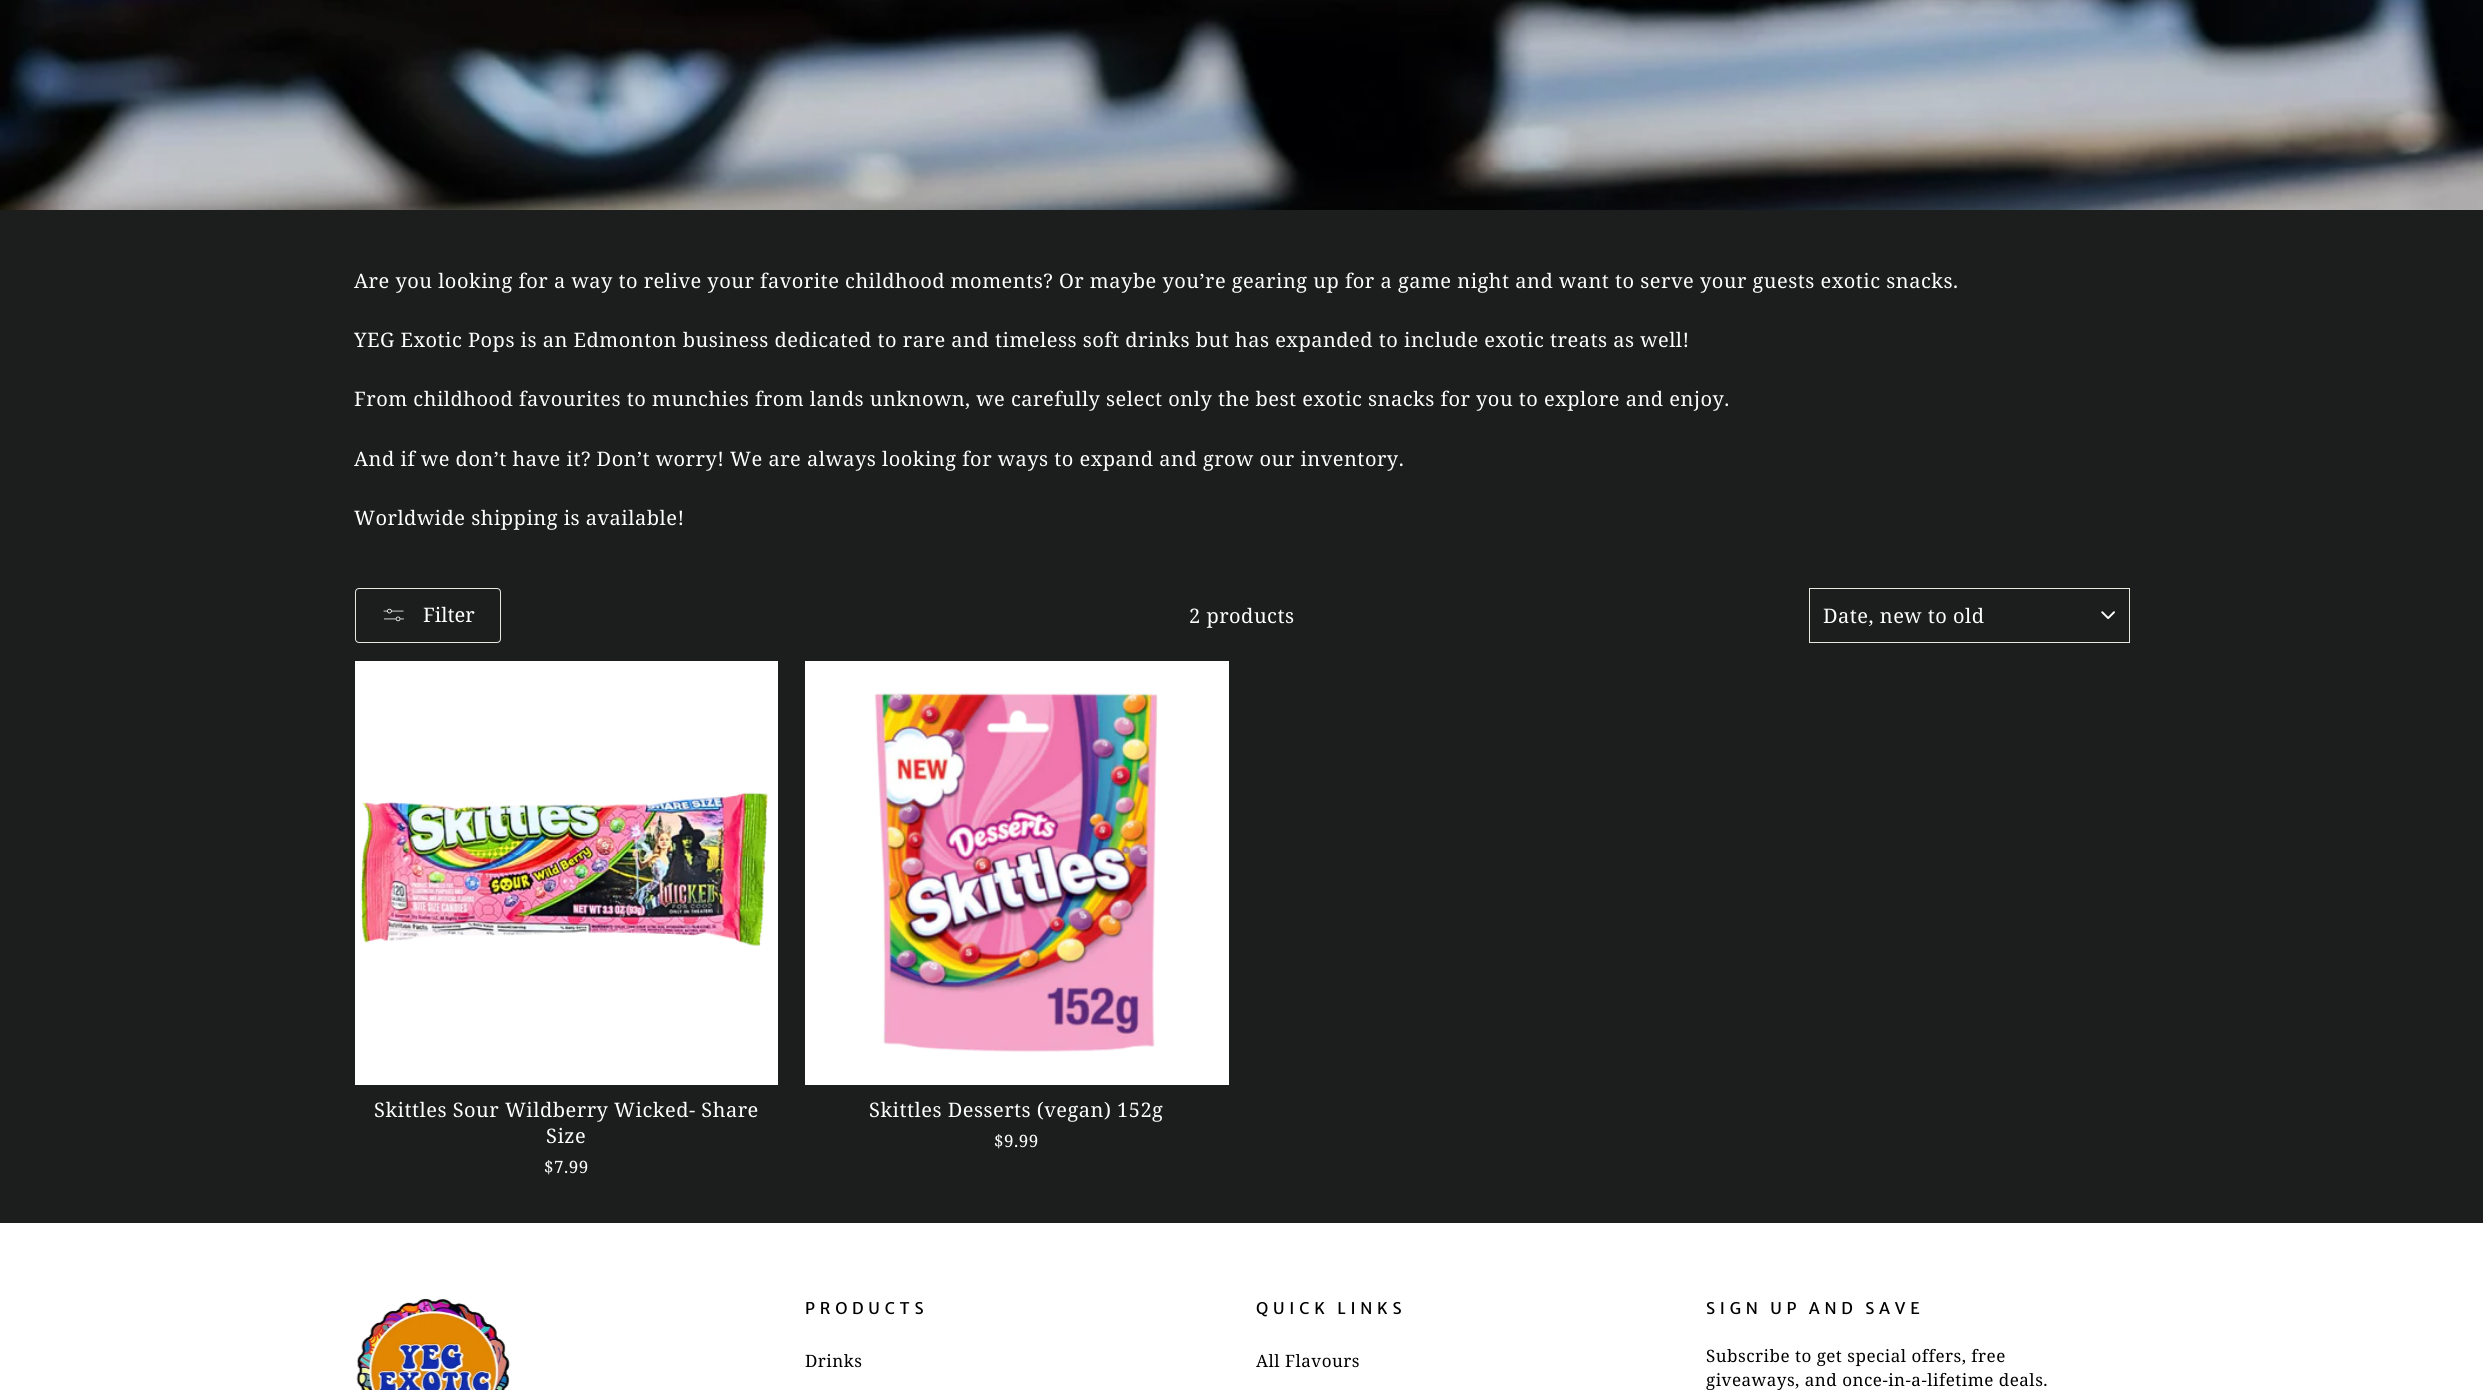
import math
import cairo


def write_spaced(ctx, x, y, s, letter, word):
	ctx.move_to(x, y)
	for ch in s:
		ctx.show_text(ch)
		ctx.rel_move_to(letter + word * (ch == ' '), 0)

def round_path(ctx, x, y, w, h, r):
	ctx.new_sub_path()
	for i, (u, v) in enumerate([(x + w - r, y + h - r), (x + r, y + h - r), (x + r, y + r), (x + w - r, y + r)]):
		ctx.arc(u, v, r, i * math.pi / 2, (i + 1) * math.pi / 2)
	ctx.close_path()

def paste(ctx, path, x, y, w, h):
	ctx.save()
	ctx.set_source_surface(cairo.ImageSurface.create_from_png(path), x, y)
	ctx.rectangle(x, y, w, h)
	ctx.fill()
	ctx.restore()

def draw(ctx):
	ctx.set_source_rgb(0.11, 0.114, 0.114)
	ctx.paint()
	paste(ctx, 'media/1.png', 0, 0, 2483, 210)
	ctx.select_font_face('Noto Serif')
	ctx.set_font_size(20)
	ctx.set_source_rgb(1, 1, 1)
	for x, y, s in [
		(354, 288, 'Are you looking for a way to relive your favorite childhood moments? Or maybe you’re gearing up for a game night and want to serve your guests exotic snacks.'),
		(354, 347, 'YEG Exotic Pops is an Edmonton business dedicated to rare and timeless soft drinks but has expanded to include exotic treats as well!'),
		(354, 406, 'From childhood favourites to munchies from lands unknown, we carefully select only the best exotic snacks for you to explore and enjoy.'),
		(354, 466, 'And if we don’t have it? Don’t worry! We are always looking for ways to expand and grow our inventory.'),
		(354, 525, 'Worldwide shipping is available!'),
	]:
		write_spaced(ctx, x, y, s, 0.5, 0)
	round_path(ctx, 355.5, 588.5, 145, 54, 3.5)
	ctx.set_source_rgb(0.91, 0.91, 0.882)
	ctx.set_line_width(1)
	ctx.stroke()
	paste(ctx, 'media/2.png', 383, 608, 21, 14)
	ctx.set_source_rgb(1, 1, 1)
	ctx.move_to(423, 622)
	ctx.show_text('Filter')
	write_spaced(ctx, 1189, 623, '2 products', 0.5, 0)
	paste(ctx, 'media/3.png', 2101, 611, 14, 8)
	ctx.rectangle(1809.5, 588.5, 320, 54)
	ctx.set_source_rgb(0.91, 0.91, 0.882)
	ctx.stroke()
	ctx.set_source_rgb(1, 1, 1)
	write_spaced(ctx, 1823, 623, 'Date, new to old', 0.5, 0)
	ctx.rectangle(355, 661, 423, 424)
	ctx.fill()
	paste(ctx, 'media/4.png', 360, 792, 409, 154)
	write_spaced(ctx, 374, 1117, 'Skittles Sour Wildberry Wicked- Share', 0.5, 0)
	write_spaced(ctx, 546, 1143, 'Size', 0.5, 0)
	ctx.set_font_size(17)
	write_spaced(ctx, 544, 1173, '$7.99', 0.5, 0)
	ctx.rectangle(805, 661, 424, 424)
	ctx.fill()
	paste(ctx, 'media/5.png', 874, 693, 284, 359)
	ctx.set_font_size(20)
	write_spaced(ctx, 869, 1117, 'Skittles Desserts (vegan) 152g', 0.5, 0)
	ctx.set_font_size(17)
	write_spaced(ctx, 994, 1147, '$9.99', 0.5, 0)
	ctx.rectangle(0, 1223, 2483, 167)
	ctx.fill()
	paste(ctx, 'media/6.png', 356, 1298, 154, 92)
	ctx.select_font_face('Merriweather Sans')
	ctx.set_font_size(16)
	ctx.set_source_rgb(0, 0, 0)
	write_spaced(ctx, 805, 1314, 'PRODUCTS', 4.75, 0)
	ctx.select_font_face('Noto Serif')
	ctx.set_font_size(17)
	write_spaced(ctx, 805, 1367, 'Drinks', 0.5, 0)
	ctx.select_font_face('Merriweather Sans')
	ctx.set_font_size(16)
	write_spaced(ctx, 1256, 1314, 'QUICK LINKS', 4.75, 0)
	ctx.select_font_face('Noto Serif')
	ctx.set_font_size(17)
	write_spaced(ctx, 1256, 1367, 'All Flavours', 0.5, 0)
	ctx.select_font_face('Merriweather Sans')
	ctx.set_font_size(16)
	write_spaced(ctx, 1706, 1314, 'SIGN UP AND SAVE', 4.75, 0)
	ctx.select_font_face('Noto Serif')
	ctx.set_font_size(17)
	write_spaced(ctx, 1706, 1362, 'Subscribe to get special offers, free', 0.5, 0)
	write_spaced(ctx, 1706, 1386, 'giveaways, and once-in-a-lifetime deals.', 0.5, 0)


surface = cairo.ImageSurface(cairo.FORMAT_RGB24, 2483, 1390)
ctx = cairo.Context(surface)
options = cairo.FontOptions()
options.set_hint_metrics(cairo.HINT_METRICS_OFF)
options.set_hint_style(cairo.HINT_STYLE_NONE)
ctx.set_font_options(options)
ctx.set_miter_limit(4)
draw(ctx)
surface.write_to_png('image.png')
